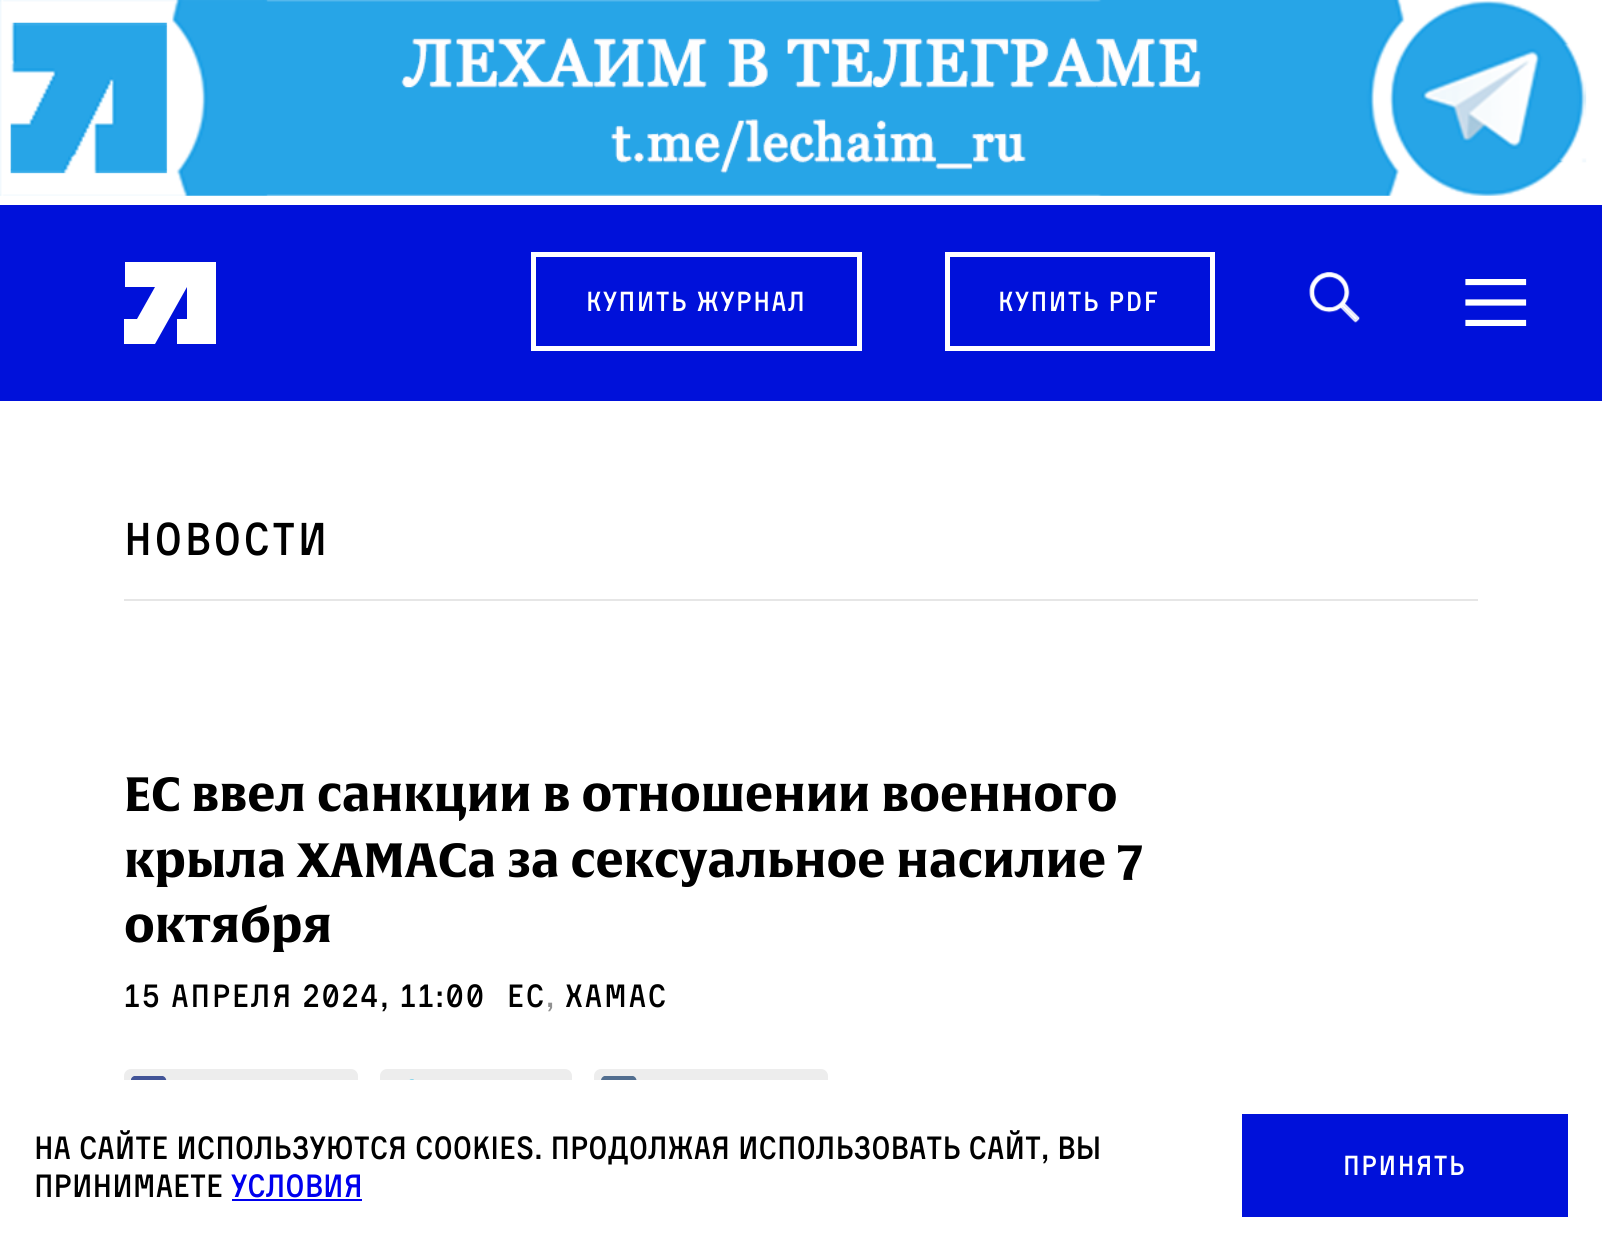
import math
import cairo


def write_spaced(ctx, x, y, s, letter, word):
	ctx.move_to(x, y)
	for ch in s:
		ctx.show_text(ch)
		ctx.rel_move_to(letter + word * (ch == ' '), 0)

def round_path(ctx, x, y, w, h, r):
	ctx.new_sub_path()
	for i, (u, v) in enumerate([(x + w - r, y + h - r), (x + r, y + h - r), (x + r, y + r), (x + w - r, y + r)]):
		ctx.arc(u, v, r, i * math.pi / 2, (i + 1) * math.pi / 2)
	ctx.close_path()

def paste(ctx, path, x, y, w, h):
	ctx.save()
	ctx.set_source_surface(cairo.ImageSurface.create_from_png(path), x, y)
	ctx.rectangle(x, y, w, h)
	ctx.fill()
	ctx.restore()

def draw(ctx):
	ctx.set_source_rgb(1, 1, 1)
	ctx.paint()
	paste(ctx, 'media/1.png', 0, 0, 1587, 196)
	ctx.set_source_rgb(0, 0.067, 0.855)
	ctx.rectangle(0, 205, 1602, 196)
	ctx.fill()
	ctx.set_source_rgb(1, 1, 1)
	ctx.set_fill_rule(cairo.FILL_RULE_EVEN_ODD)
	ctx.new_path()
	ctx.move_to(125, 262)
	ctx.line_to(216, 262)
	ctx.line_to(216, 344)
	ctx.line_to(177, 344)
	ctx.line_to(177, 319)
	ctx.line_to(187, 319)
	ctx.line_to(187, 287)
	ctx.line_to(155, 344)
	ctx.line_to(124, 344)
	ctx.line_to(124, 319)
	ctx.line_to(137, 319)
	ctx.line_to(155, 287)
	ctx.line_to(125, 287)
	ctx.line_to(125, 262)
	ctx.fill()
	ctx.rectangle(533.5, 254.5, 326, 94)
	ctx.set_line_width(5)
	ctx.stroke()
	ctx.select_font_face('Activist')
	ctx.set_font_size(27)
	write_spaced(ctx, 586, 311, 'купить журнал', 1.5, 0)
	ctx.rectangle(947.5, 254.5, 265, 94)
	ctx.stroke()
	write_spaced(ctx, 998, 311, 'купить pdf', 1.5, 0)
	paste(ctx, 'media/2.png', 1309, 272, 51, 51)
	ctx.save()
	ctx.set_fill_rule(cairo.FILL_RULE_WINDING)
	ctx.rectangle(1465, 279, 63, 47)
	ctx.clip()
	ctx.new_path()
	ctx.move_to(1468.5, 282)
	ctx.line_to(1523, 282)
	ctx.move_to(1468.5, 302.5)
	ctx.line_to(1523, 302.5)
	ctx.move_to(1468.5, 323)
	ctx.line_to(1523, 323)
	ctx.set_line_width(6.2)
	ctx.set_line_cap(cairo.LINE_CAP_SQUARE)
	ctx.stroke()
	ctx.restore()
	ctx.set_source_rgb(0.902, 0.902, 0.902)
	ctx.rectangle(124, 599, 1354, 2)
	ctx.fill()
	ctx.set_font_size(45)
	ctx.set_source_rgb(0, 0, 0)
	write_spaced(ctx, 124, 555, 'Новости', 2.5, 0)
	ctx.select_font_face('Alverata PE', cairo.FONT_SLANT_NORMAL, cairo.FONT_WEIGHT_BOLD)
	ctx.set_font_size(47.25)
	for x, y, s in [
		(124, 811, 'ЕС ввел санкции в отношении военного'),
		(124, 877, 'крыла ХАМАСа за сексуальное насилие 7'),
		(124, 942, 'октября'),
	]:
		ctx.move_to(x, y)
		ctx.show_text(s)
	ctx.select_font_face('Activist')
	ctx.set_font_size(31.5)
	write_spaced(ctx, 124, 1007, '15 апреля 2024, 11:00', 1.8, 0)
	write_spaced(ctx, 507, 1007, 'ЕС', 1.8, 0)
	ctx.set_source_rgb(0.569, 0.569, 0.569)
	write_spaced(ctx, 546, 1007, ',', 1.8, 0)
	ctx.set_source_rgb(0, 0, 0)
	write_spaced(ctx, 565, 1007, 'ХАМАС', 1.8, 0)
	ctx.set_source_rgb(0.929, 0.929, 0.929)
	round_path(ctx, 124, 1069, 234, 49, 7)
	ctx.fill()
	paste(ctx, 'media/3.png', 131, 1076, 36, 4)
	round_path(ctx, 380, 1069, 192, 49, 7)
	ctx.fill()
	paste(ctx, 'media/4.png', 409, 1079, 5, 1)
	round_path(ctx, 594, 1069, 234, 49, 7)
	ctx.fill()
	paste(ctx, 'media/5.png', 601, 1076, 36, 4)
	ctx.set_source_rgb(1, 1, 1)
	ctx.rectangle(124, 1080, 704, 38)
	ctx.fill()
	ctx.set_source_rgb(0, 0, 0)
	ctx.move_to(34, 1159)
	ctx.show_text('На сайте используются cookies. Продолжая использовать сайт, вы')
	ctx.move_to(34, 1197)
	ctx.show_text('принимаете')
	ctx.set_source_rgb(0, 0, 0.933)
	ctx.move_to(231, 1197)
	ctx.show_text('условия')
	ctx.rectangle(232, 1199, 130, 2)
	ctx.fill()
	ctx.set_source_rgb(0, 0.067, 0.855)
	ctx.rectangle(1242, 1114, 326, 103)
	ctx.fill()
	ctx.set_font_size(27)
	ctx.set_source_rgb(1, 1, 1)
	write_spaced(ctx, 1343, 1175, 'Принять', 1.5, 0)


surface = cairo.ImageSurface(cairo.FORMAT_RGB24, 1602, 1251)
ctx = cairo.Context(surface)
options = cairo.FontOptions()
options.set_hint_metrics(cairo.HINT_METRICS_OFF)
options.set_hint_style(cairo.HINT_STYLE_NONE)
ctx.set_font_options(options)
ctx.set_miter_limit(4)
draw(ctx)
surface.write_to_png('image.png')
